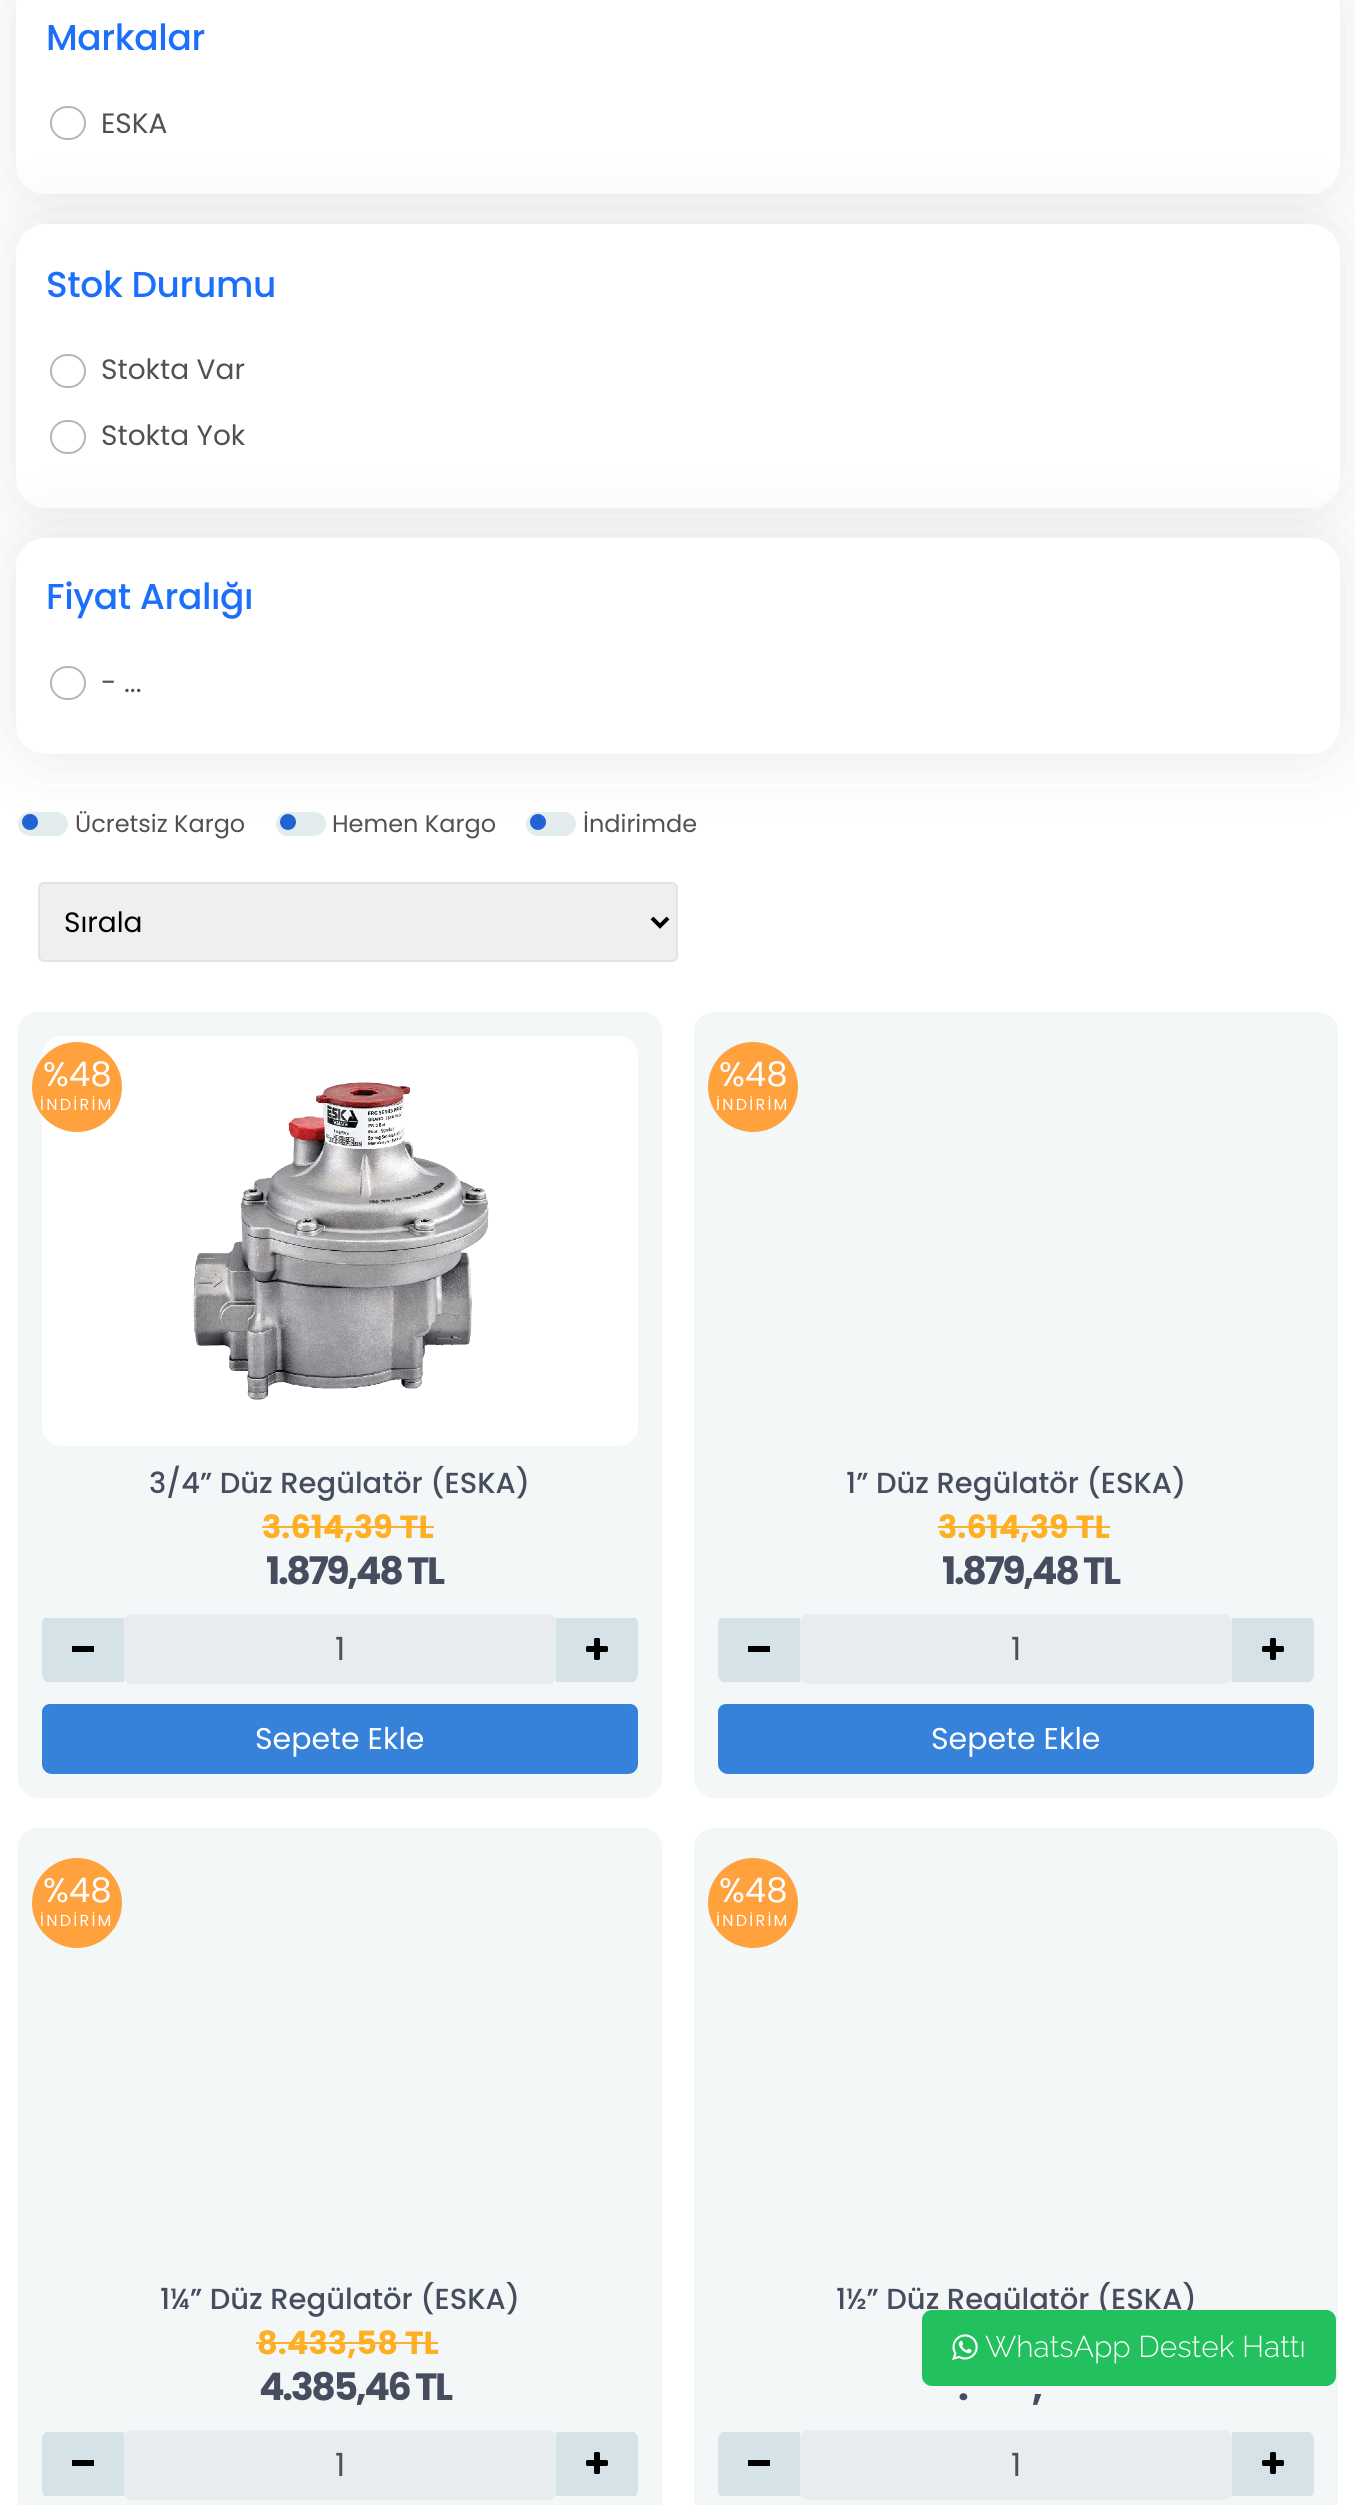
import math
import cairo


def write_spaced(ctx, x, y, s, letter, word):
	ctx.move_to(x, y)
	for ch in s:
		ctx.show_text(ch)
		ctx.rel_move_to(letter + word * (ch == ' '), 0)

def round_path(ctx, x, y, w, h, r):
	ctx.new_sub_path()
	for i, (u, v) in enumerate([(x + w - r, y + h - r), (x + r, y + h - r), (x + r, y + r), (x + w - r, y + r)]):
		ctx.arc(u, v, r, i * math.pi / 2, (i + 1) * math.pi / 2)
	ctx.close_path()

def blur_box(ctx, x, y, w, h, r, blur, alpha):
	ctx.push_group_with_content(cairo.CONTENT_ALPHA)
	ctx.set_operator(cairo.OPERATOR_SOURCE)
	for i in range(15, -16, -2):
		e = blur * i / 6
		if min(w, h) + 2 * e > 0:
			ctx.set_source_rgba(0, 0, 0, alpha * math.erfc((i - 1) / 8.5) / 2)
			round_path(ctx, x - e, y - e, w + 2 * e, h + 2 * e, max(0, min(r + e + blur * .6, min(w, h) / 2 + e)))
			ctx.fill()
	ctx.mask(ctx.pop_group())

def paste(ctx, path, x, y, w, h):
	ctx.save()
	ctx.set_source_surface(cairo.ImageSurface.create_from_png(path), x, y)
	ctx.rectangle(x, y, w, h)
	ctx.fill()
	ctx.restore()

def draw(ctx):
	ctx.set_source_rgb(1, 1, 1)
	ctx.paint()
	ctx.set_source_rgb(0, 0, 0)
	blur_box(ctx, 16, -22, 1324, 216, 30, 38, 0.09)
	ctx.set_source_rgb(1, 1, 1)
	round_path(ctx, 16, -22, 1324, 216, 30)
	ctx.fill()
	ctx.select_font_face('Poppins Medium')
	ctx.set_font_size(36)
	ctx.set_source_rgb(0.11, 0.435, 0.984)
	write_spaced(ctx, 46, 50, 'Markalar', -0.4, 0)
	ctx.set_source_rgb(0, 0, 0)
	blur_box(ctx, 16, 224, 1324, 284, 30, 38, 0.09)
	round_path(ctx, 51, 107, 34, 32, 16)
	ctx.set_source_rgb(0.718, 0.718, 0.718)
	ctx.stroke()
	ctx.select_font_face('Poppins')
	ctx.set_font_size(28)
	ctx.set_source_rgb(0.318, 0.318, 0.318)
	ctx.move_to(101, 133)
	ctx.show_text('ESKA')
	ctx.set_source_rgb(1, 1, 1)
	round_path(ctx, 16, 224, 1324, 284, 30)
	ctx.fill()
	ctx.select_font_face('Poppins Medium')
	ctx.set_font_size(36)
	ctx.set_source_rgb(0.11, 0.435, 0.984)
	write_spaced(ctx, 46, 297, 'Stok Durumu', -0.4, 0)
	round_path(ctx, 51, 355, 34, 32, 16)
	ctx.set_source_rgb(0.718, 0.718, 0.718)
	ctx.stroke()
	ctx.select_font_face('Poppins')
	ctx.set_font_size(28)
	ctx.set_source_rgb(0.318, 0.318, 0.318)
	ctx.move_to(101, 379)
	ctx.show_text('Stokta Var')
	ctx.set_source_rgb(0, 0, 0)
	blur_box(ctx, 16, 538, 1324, 216, 30, 38, 0.09)
	round_path(ctx, 51, 421, 34, 32, 16)
	ctx.set_source_rgb(0.718, 0.718, 0.718)
	ctx.stroke()
	ctx.set_source_rgb(0.318, 0.318, 0.318)
	ctx.move_to(101, 445)
	ctx.show_text('Stokta Yok')
	ctx.set_source_rgb(1, 1, 1)
	round_path(ctx, 16, 538, 1324, 216, 30)
	ctx.fill()
	ctx.select_font_face('Poppins Medium')
	ctx.set_font_size(36)
	ctx.set_source_rgb(0.11, 0.435, 0.984)
	write_spaced(ctx, 46, 609, 'Fiyat Aralığı', -0.4, 0)
	round_path(ctx, 51, 667, 34, 32, 16)
	ctx.set_source_rgb(0.718, 0.718, 0.718)
	ctx.stroke()
	ctx.select_font_face('Poppins')
	ctx.set_font_size(28)
	ctx.set_source_rgb(0.318, 0.318, 0.318)
	ctx.move_to(101, 692)
	ctx.show_text('- ...')
	round_path(ctx, 17, 785, 1322, 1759, 37)
	ctx.set_source_rgb(1, 1, 1)
	ctx.stroke()
	ctx.set_source_rgb(0.886, 0.922, 0.937)
	round_path(ctx, 18, 812, 50, 24, 12)
	ctx.fill()
	ctx.set_font_size(24)
	ctx.set_source_rgb(0.318, 0.318, 0.318)
	ctx.move_to(75, 832)
	ctx.show_text('Ücretsiz Kargo')
	ctx.set_source_rgb(0.125, 0.392, 0.827)
	ctx.new_path()
	ctx.arc(30, 822, 8, 0, 2 * math.pi)
	ctx.fill()
	ctx.set_source_rgb(0.886, 0.922, 0.937)
	round_path(ctx, 276, 812, 50, 24, 12)
	ctx.fill()
	ctx.set_source_rgb(0.125, 0.392, 0.827)
	ctx.arc(288, 822, 8, 0, 2 * math.pi)
	ctx.fill()
	ctx.set_source_rgb(0.318, 0.318, 0.318)
	ctx.move_to(332, 832)
	ctx.show_text('Hemen Kargo')
	ctx.set_source_rgb(0.886, 0.922, 0.937)
	round_path(ctx, 526, 812, 50, 24, 12)
	ctx.fill()
	ctx.set_source_rgb(0.318, 0.318, 0.318)
	ctx.move_to(583, 832)
	ctx.show_text('İndirimde')
	ctx.set_source_rgb(0.125, 0.392, 0.827)
	ctx.new_path()
	ctx.arc(538, 822, 8, 0, 2 * math.pi)
	ctx.fill()
	ctx.set_source_rgb(0.937, 0.937, 0.937)
	round_path(ctx, 39, 883, 638, 78, 5)
	ctx.fill_preserve()
	ctx.set_source_rgb(0.894, 0.894, 0.894)
	ctx.stroke()
	ctx.new_path()
	ctx.move_to(652, 918)
	ctx.line_to(660, 926)
	ctx.line_to(668, 918)
	ctx.set_source_rgb(0, 0, 0)
	ctx.set_line_width(4)
	ctx.stroke()
	ctx.set_font_size(28)
	ctx.move_to(64, 932)
	ctx.show_text('Sırala')
	ctx.set_source_rgb(0.953, 0.965, 0.969)
	round_path(ctx, 20, 1014, 640, 782, 18)
	ctx.fill_preserve()
	ctx.stroke()
	ctx.set_source_rgb(1, 1, 1)
	round_path(ctx, 42, 1036, 596, 410, 20)
	ctx.fill()
	ctx.set_source_rgb(1, 0.631, 0.235)
	ctx.arc(77, 1087, 45, 0, 2 * math.pi)
	ctx.fill()
	ctx.set_font_size(34)
	ctx.set_source_rgb(1, 1, 1)
	ctx.move_to(43, 1086)
	ctx.show_text('%48')
	ctx.set_font_size(16)
	write_spaced(ctx, 40, 1110, 'İNDİRİM', 2.25, 0)
	paste(ctx, 'media/1.png', 193, 1082, 296, 318)
	ctx.select_font_face('Poppins Medium')
	ctx.set_font_size(29)
	ctx.set_source_rgb(0.275, 0.302, 0.373)
	ctx.move_to(149, 1493)
	ctx.show_text('3/4” Düz Regülatör (ESKA)')
	ctx.select_font_face('Poppins', cairo.FONT_SLANT_NORMAL, cairo.FONT_WEIGHT_BOLD)
	ctx.set_font_size(32)
	ctx.set_source_rgb(1, 0.686, 0.137)
	ctx.move_to(262, 1538)
	ctx.show_text('3.614,39 TL')
	ctx.rectangle(262, 1526, 172, 2)
	ctx.fill()
	ctx.set_font_size(38)
	ctx.set_source_rgb(0.275, 0.302, 0.373)
	write_spaced(ctx, 266, 1584, '1.879,48 TL', -2.4, 0)
	ctx.save()
	round_path(ctx, 42, 1614, 596, 70, 10)
	ctx.clip()
	ctx.set_source_rgb(0.835, 0.886, 0.906)
	ctx.rectangle(42, 1618, 82, 64)
	ctx.fill()
	ctx.restore()
	ctx.set_source_rgb(0, 0, 0)
	ctx.rectangle(72, 1646, 22, 6)
	ctx.fill()
	ctx.set_source_rgb(0.914, 0.925, 0.937)
	round_path(ctx, 124, 1614, 432, 70, 8)
	ctx.fill()
	ctx.select_font_face('Poppins')
	ctx.set_font_size(32)
	ctx.set_source_rgb(0.286, 0.314, 0.341)
	ctx.move_to(335, 1660)
	ctx.show_text('1')
	ctx.save()
	round_path(ctx, 42, 1614, 596, 70, 10)
	ctx.clip()
	ctx.set_source_rgb(0.835, 0.886, 0.906)
	ctx.rectangle(556, 1618, 82, 64)
	ctx.fill()
	ctx.restore()
	paste(ctx, 'media/2.png', 586, 1638, 22, 22)
	ctx.set_source_rgb(0.212, 0.506, 0.855)
	ctx.new_path()
	ctx.move_to(50, 1704)
	ctx.line_to(630, 1704)
	ctx.curve_to(634.5, 1704, 638, 1707.5, 638, 1712)
	ctx.line_to(638, 1764)
	ctx.curve_to(638, 1769.5, 633.5, 1774, 628, 1774)
	ctx.line_to(52, 1774)
	ctx.curve_to(46.5, 1774, 42, 1769.5, 42, 1764)
	ctx.line_to(42, 1712)
	ctx.curve_to(42, 1707.5, 45.5, 1704, 50, 1704)
	ctx.close_path()
	ctx.fill()
	ctx.set_font_size(30)
	ctx.set_source_rgb(1, 1, 1)
	ctx.move_to(255, 1749)
	ctx.show_text('Sepete Ekle')
	ctx.set_source_rgb(0.953, 0.965, 0.969)
	round_path(ctx, 696, 1014, 640, 782, 18)
	ctx.fill_preserve()
	ctx.stroke()
	ctx.set_source_rgb(1, 0.631, 0.235)
	ctx.arc(753, 1087, 45, 0, 2 * math.pi)
	ctx.fill()
	ctx.set_font_size(34)
	ctx.set_source_rgb(1, 1, 1)
	ctx.move_to(719, 1086)
	ctx.show_text('%48')
	ctx.set_font_size(16)
	write_spaced(ctx, 716, 1110, 'İNDİRİM', 2.25, 0)
	ctx.select_font_face('Poppins Medium')
	ctx.set_font_size(29)
	ctx.set_source_rgb(0.275, 0.302, 0.373)
	ctx.move_to(846, 1493)
	ctx.show_text('1” Düz Regülatör (ESKA)')
	ctx.select_font_face('Poppins', cairo.FONT_SLANT_NORMAL, cairo.FONT_WEIGHT_BOLD)
	ctx.set_font_size(32)
	ctx.set_source_rgb(1, 0.686, 0.137)
	ctx.move_to(938, 1538)
	ctx.show_text('3.614,39 TL')
	ctx.rectangle(938, 1526, 172, 2)
	ctx.fill()
	ctx.set_font_size(38)
	ctx.set_source_rgb(0.275, 0.302, 0.373)
	write_spaced(ctx, 942, 1584, '1.879,48 TL', -2.4, 0)
	ctx.save()
	round_path(ctx, 718, 1614, 596, 70, 10)
	ctx.clip()
	ctx.set_source_rgb(0.835, 0.886, 0.906)
	ctx.rectangle(718, 1618, 82, 64)
	ctx.fill()
	ctx.restore()
	ctx.set_source_rgb(0, 0, 0)
	ctx.rectangle(748, 1646, 22, 6)
	ctx.fill()
	ctx.set_source_rgb(0.914, 0.925, 0.937)
	round_path(ctx, 800, 1614, 432, 70, 8)
	ctx.fill()
	ctx.select_font_face('Poppins')
	ctx.set_font_size(32)
	ctx.set_source_rgb(0.286, 0.314, 0.341)
	ctx.move_to(1011, 1660)
	ctx.show_text('1')
	ctx.save()
	round_path(ctx, 718, 1614, 596, 70, 10)
	ctx.clip()
	ctx.set_source_rgb(0.835, 0.886, 0.906)
	ctx.rectangle(1232, 1618, 82, 64)
	ctx.fill()
	ctx.restore()
	paste(ctx, 'media/2.png', 1262, 1638, 22, 22)
	ctx.set_source_rgb(0.212, 0.506, 0.855)
	ctx.new_path()
	ctx.move_to(726, 1704)
	ctx.line_to(1306, 1704)
	ctx.curve_to(1310.5, 1704, 1314, 1707.5, 1314, 1712)
	ctx.line_to(1314, 1764)
	ctx.curve_to(1314, 1769.5, 1309.5, 1774, 1304, 1774)
	ctx.line_to(728, 1774)
	ctx.curve_to(722.5, 1774, 718, 1769.5, 718, 1764)
	ctx.line_to(718, 1712)
	ctx.curve_to(718, 1707.5, 721.5, 1704, 726, 1704)
	ctx.close_path()
	ctx.fill()
	ctx.set_font_size(30)
	ctx.set_source_rgb(1, 1, 1)
	ctx.move_to(931, 1749)
	ctx.show_text('Sepete Ekle')
	ctx.set_source_rgb(0.953, 0.965, 0.969)
	round_path(ctx, 20, 1830, 640, 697, 18)
	ctx.fill_preserve()
	ctx.stroke()
	ctx.set_source_rgb(1, 0.631, 0.235)
	ctx.arc(77, 1903, 45, 0, 2 * math.pi)
	ctx.fill()
	ctx.set_font_size(34)
	ctx.set_source_rgb(1, 1, 1)
	ctx.move_to(43, 1902)
	ctx.show_text('%48')
	ctx.set_font_size(16)
	write_spaced(ctx, 40, 1926, 'İNDİRİM', 2.25, 0)
	ctx.select_font_face('Poppins Medium')
	ctx.set_font_size(29)
	ctx.set_source_rgb(0.275, 0.302, 0.373)
	ctx.move_to(160, 2309)
	ctx.show_text('1¼” Düz Regülatör (ESKA)')
	ctx.select_font_face('Poppins', cairo.FONT_SLANT_NORMAL, cairo.FONT_WEIGHT_BOLD)
	ctx.set_font_size(32)
	ctx.set_source_rgb(1, 0.686, 0.137)
	ctx.move_to(257, 2354)
	ctx.show_text('8.433,58 TL')
	ctx.rectangle(256, 2342, 182, 2)
	ctx.fill()
	ctx.set_font_size(38)
	ctx.set_source_rgb(0.275, 0.302, 0.373)
	write_spaced(ctx, 259, 2400, '4.385,46 TL', -2.4, 0)
	ctx.save()
	round_path(ctx, 42, 2430, 596, 70, 10)
	ctx.clip()
	ctx.set_source_rgb(0.835, 0.886, 0.906)
	ctx.rectangle(42, 2432, 82, 64)
	ctx.fill()
	ctx.restore()
	ctx.set_source_rgb(0, 0, 0)
	ctx.rectangle(72, 2460, 22, 6)
	ctx.fill()
	ctx.set_source_rgb(0.914, 0.925, 0.937)
	round_path(ctx, 124, 2430, 432, 70, 8)
	ctx.fill()
	ctx.select_font_face('Poppins')
	ctx.set_font_size(32)
	ctx.set_source_rgb(0.286, 0.314, 0.341)
	ctx.move_to(335, 2476)
	ctx.show_text('1')
	ctx.save()
	round_path(ctx, 42, 2430, 596, 70, 10)
	ctx.clip()
	ctx.set_source_rgb(0.835, 0.886, 0.906)
	ctx.rectangle(556, 2432, 82, 64)
	ctx.fill()
	ctx.restore()
	paste(ctx, 'media/2.png', 586, 2452, 22, 22)
	ctx.set_source_rgb(0.953, 0.965, 0.969)
	round_path(ctx, 696, 1830, 640, 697, 18)
	ctx.fill_preserve()
	ctx.stroke()
	ctx.set_source_rgb(1, 0.631, 0.235)
	ctx.arc(753, 1903, 45, 0, 2 * math.pi)
	ctx.fill()
	ctx.set_font_size(34)
	ctx.set_source_rgb(1, 1, 1)
	ctx.move_to(719, 1902)
	ctx.show_text('%48')
	ctx.set_font_size(16)
	write_spaced(ctx, 716, 1926, 'İNDİRİM', 2.25, 0)
	ctx.select_font_face('Poppins Medium')
	ctx.set_font_size(29)
	ctx.set_source_rgb(0.275, 0.302, 0.373)
	ctx.move_to(836, 2309)
	ctx.show_text('1½” Düz Regülatör (ESKA)')
	ctx.select_font_face('Poppins', cairo.FONT_SLANT_NORMAL, cairo.FONT_WEIGHT_BOLD)
	ctx.set_font_size(38)
	write_spaced(ctx, 958, 2400, '.', -2.4, 0)
	write_spaced(ctx, 1032, 2400, ',', -2.4, 0)
	ctx.save()
	round_path(ctx, 718, 2430, 596, 70, 10)
	ctx.clip()
	ctx.set_source_rgb(0.835, 0.886, 0.906)
	ctx.rectangle(718, 2432, 82, 64)
	ctx.fill()
	ctx.restore()
	ctx.set_source_rgb(0, 0, 0)
	ctx.rectangle(748, 2460, 22, 6)
	ctx.fill()
	ctx.set_source_rgb(0.914, 0.925, 0.937)
	round_path(ctx, 800, 2430, 432, 70, 8)
	ctx.fill()
	ctx.select_font_face('Poppins')
	ctx.set_font_size(32)
	ctx.set_source_rgb(0.286, 0.314, 0.341)
	ctx.move_to(1011, 2476)
	ctx.show_text('1')
	ctx.save()
	round_path(ctx, 718, 2430, 596, 70, 10)
	ctx.clip()
	ctx.set_source_rgb(0.835, 0.886, 0.906)
	ctx.rectangle(1232, 2432, 82, 64)
	ctx.fill()
	ctx.restore()
	paste(ctx, 'media/2.png', 1262, 2452, 22, 22)
	ctx.set_source_rgb(0.133, 0.757, 0.369)
	round_path(ctx, 922, 2310, 414, 76, 10)
	ctx.fill()
	paste(ctx, 'media/3.png', 952, 2334, 26, 27)
	ctx.select_font_face('Raleway Light')
	ctx.set_font_size(30)
	ctx.set_source_rgb(1, 1, 1)
	ctx.move_to(985, 2357)
	ctx.show_text('WhatsApp Destek Hattı')


surface = cairo.ImageSurface(cairo.FORMAT_RGB24, 1355, 2505)
ctx = cairo.Context(surface)
options = cairo.FontOptions()
options.set_hint_metrics(cairo.HINT_METRICS_OFF)
options.set_hint_style(cairo.HINT_STYLE_NONE)
ctx.set_font_options(options)
ctx.set_miter_limit(4)
draw(ctx)
surface.write_to_png('image.png')
